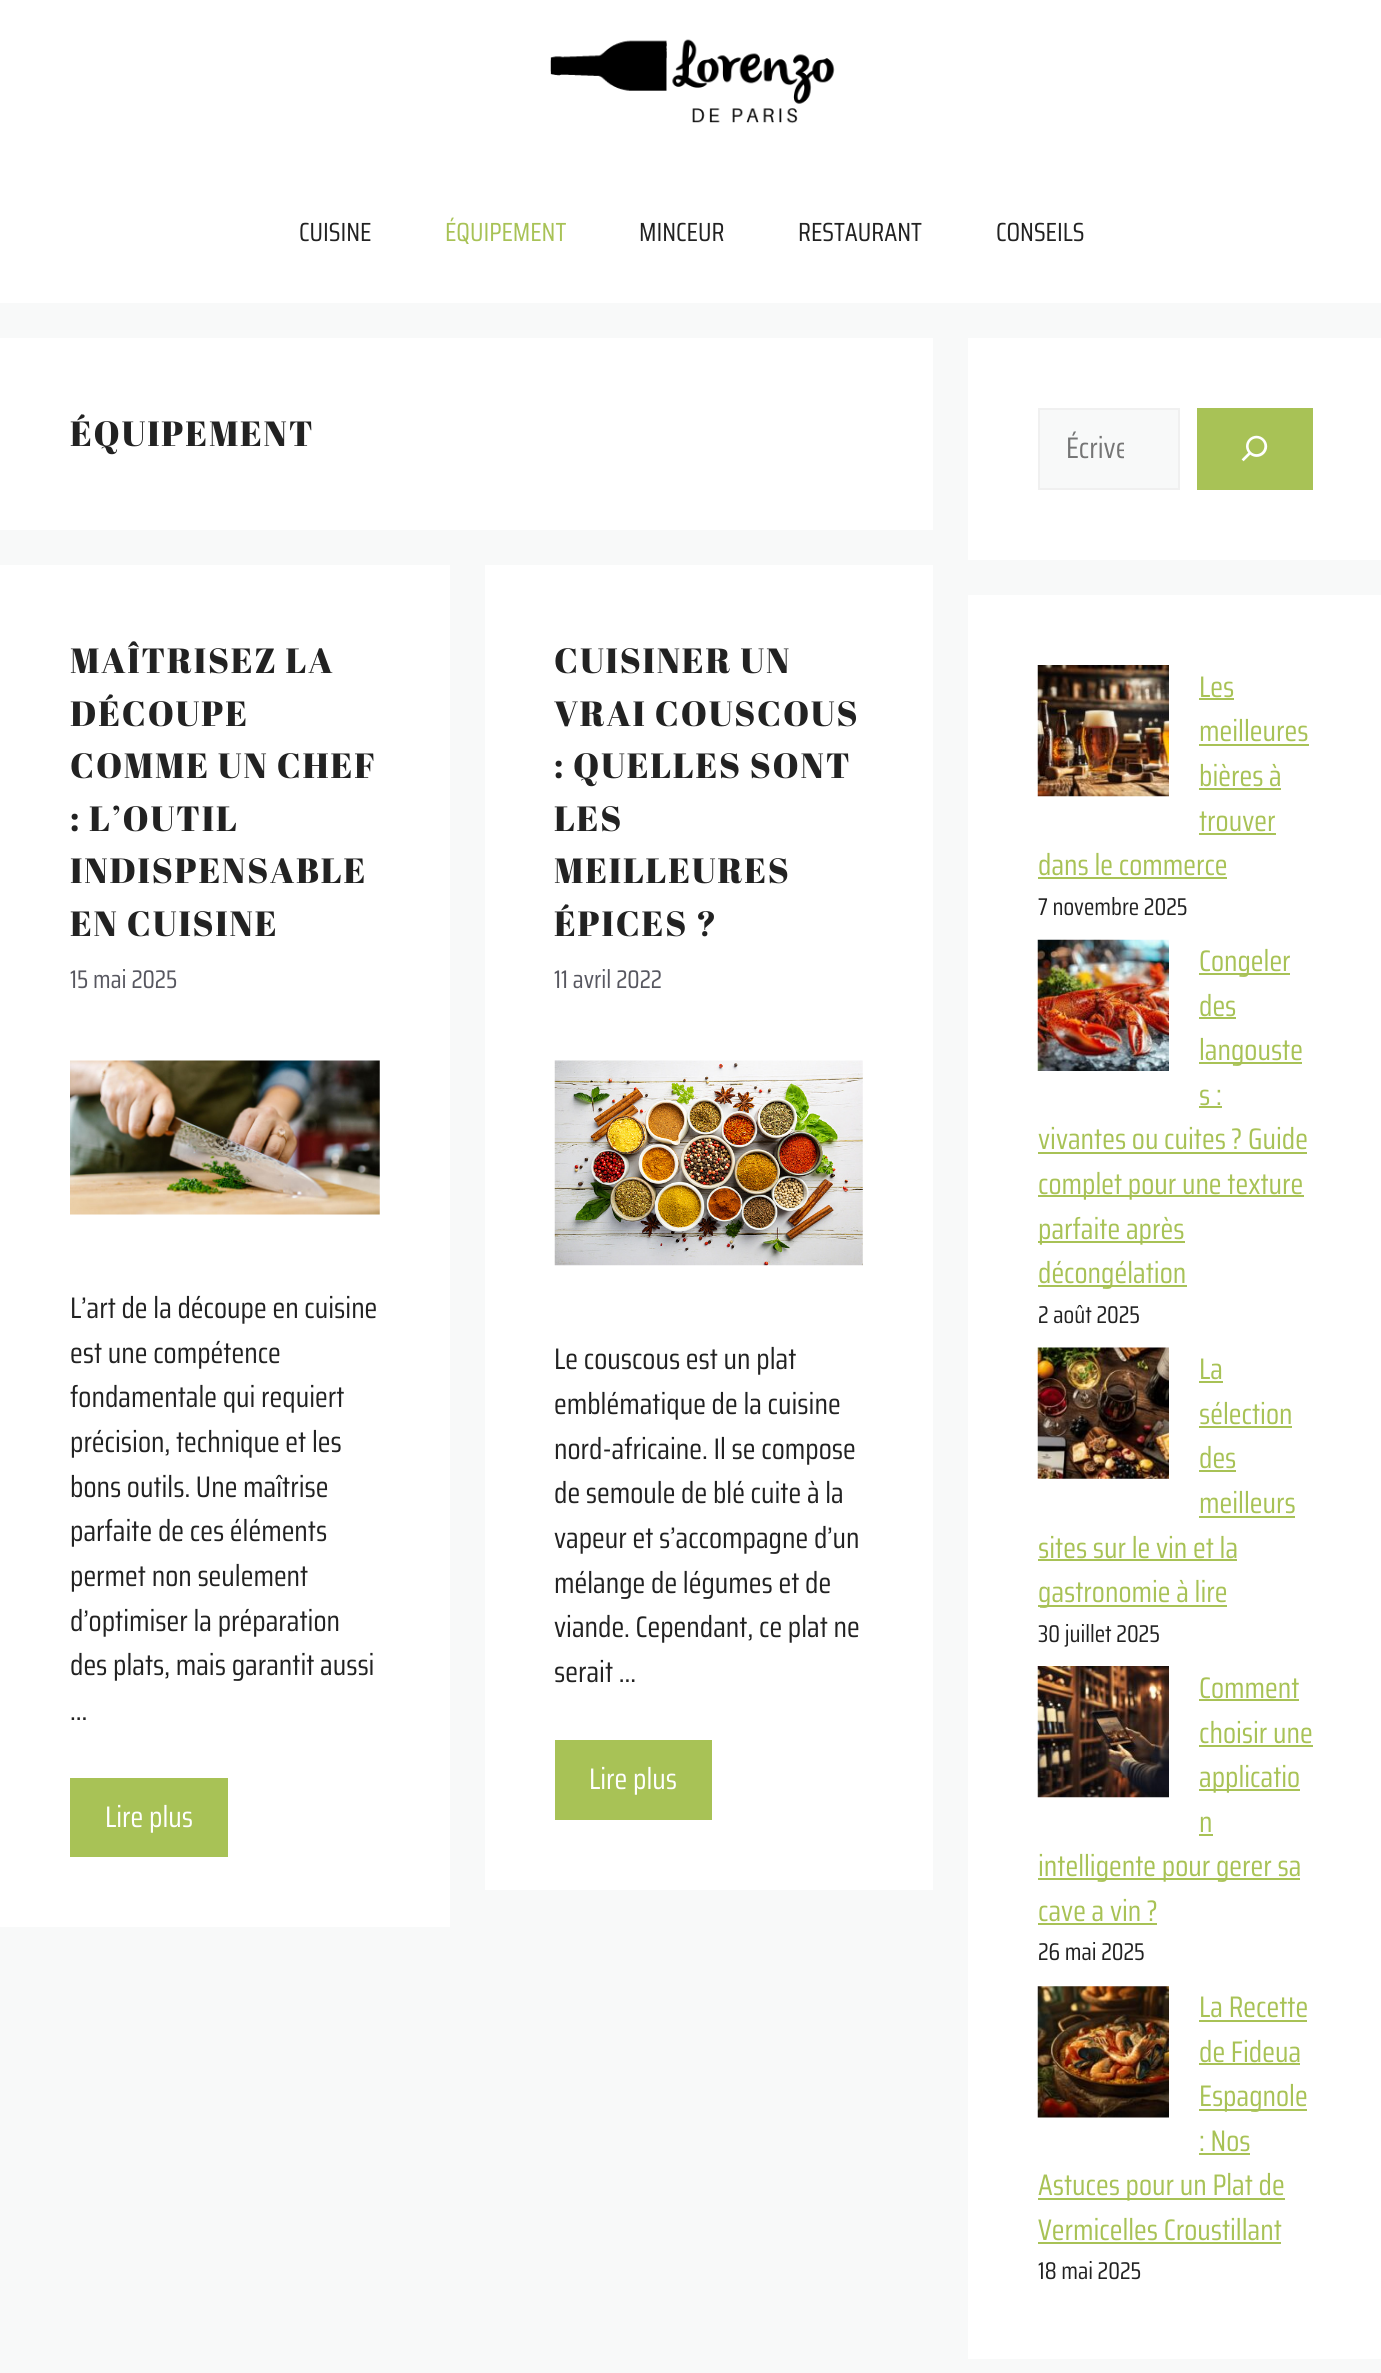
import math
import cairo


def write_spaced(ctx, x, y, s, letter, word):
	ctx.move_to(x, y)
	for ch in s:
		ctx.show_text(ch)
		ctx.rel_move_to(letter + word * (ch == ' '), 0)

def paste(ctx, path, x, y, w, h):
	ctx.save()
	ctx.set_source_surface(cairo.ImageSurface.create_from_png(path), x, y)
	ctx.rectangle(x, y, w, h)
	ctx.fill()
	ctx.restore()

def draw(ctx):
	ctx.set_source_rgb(0.969, 0.973, 0.976)
	ctx.paint()
	ctx.set_source_rgb(1, 1, 1)
	ctx.rectangle(0, 0, 1381, 303)
	ctx.fill()
	paste(ctx, 'media/1.png', 550, 39, 285, 85)
	ctx.select_font_face('Saira Condensed')
	ctx.set_font_size(26.25)
	ctx.set_source_rgb(0.133, 0.133, 0.133)
	ctx.move_to(299, 241)
	ctx.show_text('CUISINE')
	ctx.set_source_rgb(0.659, 0.761, 0.337)
	ctx.move_to(445, 241)
	ctx.show_text('ÉQUIPEMENT')
	ctx.set_source_rgb(0.133, 0.133, 0.133)
	for x, y, s in [
		(639, 241, 'MINCEUR'),
		(798, 241, 'RESTAURANT'),
		(996, 241, 'CONSEILS'),
	]:
		ctx.move_to(x, y)
		ctx.show_text(s)
	ctx.set_source_rgb(1, 1, 1)
	ctx.rectangle(0, 338, 933, 192)
	ctx.fill()
	ctx.select_font_face('Abril Fatface')
	ctx.set_font_size(35)
	ctx.set_source_rgb(0.133, 0.133, 0.133)
	write_spaced(ctx, 70, 446, 'ÉQUIPEMENT', 1.75, 0)
	ctx.set_source_rgb(1, 1, 1)
	ctx.rectangle(0, 565, 450, 1362)
	ctx.fill()
	ctx.set_source_rgb(0.133, 0.133, 0.133)
	for x, y, s in [
		(70, 673, 'MAÎTRISEZ LA'),
		(70, 726, 'DÉCOUPE'),
		(70, 778, 'COMME UN CHEF'),
		(70, 831, ': L’OUTIL'),
		(70, 883, 'INDISPENSABLE'),
		(70, 936, 'EN CUISINE'),
	]:
		write_spaced(ctx, x, y, s, 1.75, 0)
	ctx.select_font_face('Saira Condensed')
	ctx.set_font_size(25.5)
	ctx.set_source_rgb(0.341, 0.341, 0.376)
	ctx.move_to(70, 988)
	ctx.show_text('15 mai 2025')
	paste(ctx, 'media/2.png', 70, 1060, 310, 155)
	ctx.set_font_size(29.75)
	ctx.set_source_rgb(0.133, 0.133, 0.133)
	for x, y, s in [
		(70, 1318, 'L’art de la découpe en cuisine'),
		(70, 1363, 'est une compétence'),
		(70, 1407, 'fondamentale qui requiert'),
		(70, 1452, 'précision, technique et les'),
		(70, 1497, 'bons outils. Une maîtrise'),
		(70, 1541, 'parfaite de ces éléments'),
		(70, 1586, 'permet non seulement'),
		(70, 1631, 'd’optimiser la préparation'),
		(70, 1675, 'des plats, mais garantit aussi'),
		(70, 1720, '…'),
	]:
		ctx.move_to(x, y)
		ctx.show_text(s)
	ctx.set_source_rgb(0.659, 0.761, 0.337)
	ctx.rectangle(70, 1778, 158, 79)
	ctx.fill()
	ctx.set_source_rgb(1, 1, 1)
	ctx.move_to(105, 1827)
	ctx.show_text('Lire plus')
	ctx.rectangle(485, 565, 448, 1325)
	ctx.fill()
	ctx.select_font_face('Abril Fatface')
	ctx.set_font_size(35)
	ctx.set_source_rgb(0.133, 0.133, 0.133)
	for x, y, s in [
		(554, 673, 'CUISINER UN'),
		(554, 726, 'VRAI COUSCOUS'),
		(554, 778, ': QUELLES SONT'),
		(554, 831, 'LES'),
		(554, 883, 'MEILLEURES'),
		(554, 936, 'ÉPICES ?'),
	]:
		write_spaced(ctx, x, y, s, 1.75, 0)
	ctx.select_font_face('Saira Condensed')
	ctx.set_font_size(25.5)
	ctx.set_source_rgb(0.341, 0.341, 0.376)
	ctx.move_to(554, 988)
	ctx.show_text('11 avril 2022')
	paste(ctx, 'media/3.png', 554, 1060, 309, 206)
	ctx.set_font_size(29.75)
	ctx.set_source_rgb(0.133, 0.133, 0.133)
	for x, y, s in [
		(554, 1369, 'Le couscous est un plat'),
		(554, 1414, 'emblématique de la cuisine'),
		(554, 1459, 'nord-africaine. Il se compose'),
		(554, 1503, 'de semoule de blé cuite à la'),
		(554, 1548, 'vapeur et s’accompagne d’un'),
		(554, 1593, 'mélange de légumes et de'),
		(554, 1637, 'viande. Cependant, ce plat ne'),
		(554, 1682, 'serait …'),
	]:
		ctx.move_to(x, y)
		ctx.show_text(s)
	ctx.set_source_rgb(0.659, 0.761, 0.337)
	ctx.rectangle(555, 1740, 157, 80)
	ctx.fill()
	ctx.set_source_rgb(1, 1, 1)
	ctx.move_to(589, 1789)
	ctx.show_text('Lire plus')
	ctx.rectangle(968, 338, 413, 222)
	ctx.fill()
	ctx.set_source_rgb(0.969, 0.973, 0.976)
	ctx.rectangle(1039, 409, 140, 80)
	ctx.fill_preserve()
	ctx.set_source_rgb(0.941, 0.941, 0.941)
	ctx.stroke()
	ctx.save()
	ctx.rectangle(1066, 425, 58, 46)
	ctx.clip()
	ctx.set_source_rgb(0.459, 0.459, 0.459)
	ctx.move_to(1066, 458)
	ctx.show_text('Écrive')
	ctx.restore()
	ctx.set_source_rgb(0.659, 0.761, 0.337)
	ctx.rectangle(1197, 408, 116, 82)
	ctx.fill()
	paste(ctx, 'media/4.png', 1241, 435, 27, 27)
	ctx.set_source_rgb(1, 1, 1)
	ctx.rectangle(968, 595, 413, 1764)
	ctx.fill()
	paste(ctx, 'media/5.png', 1037, 665, 132, 132)
	ctx.set_source_rgb(0.659, 0.761, 0.337)
	ctx.move_to(1199, 697)
	ctx.show_text('Les')
	ctx.rectangle(1199, 698, 35, 2)
	ctx.fill()
	ctx.move_to(1199, 741)
	ctx.show_text('meilleures')
	ctx.rectangle(1199, 744, 110, 2)
	ctx.fill()
	ctx.move_to(1199, 786)
	ctx.show_text('bières à')
	ctx.rectangle(1199, 788, 82, 2)
	ctx.fill()
	ctx.move_to(1199, 831)
	ctx.show_text('trouver')
	ctx.rectangle(1199, 833, 77, 2)
	ctx.fill()
	ctx.move_to(1038, 875)
	ctx.show_text('dans le commerce')
	ctx.rectangle(1038, 877, 189, 2)
	ctx.fill()
	ctx.set_font_size(24.25)
	ctx.set_source_rgb(0.133, 0.133, 0.133)
	ctx.move_to(1038, 915)
	ctx.show_text('7 novembre 2025')
	paste(ctx, 'media/6.png', 1037, 939, 132, 132)
	ctx.set_source_rgb(0.659, 0.761, 0.337)
	ctx.rectangle(1199, 973, 91, 2)
	ctx.fill()
	ctx.set_font_size(29.75)
	ctx.move_to(1199, 971)
	ctx.show_text('Congeler')
	ctx.move_to(1199, 1016)
	ctx.show_text('des')
	ctx.rectangle(1199, 1017, 37, 2)
	ctx.fill()
	ctx.rectangle(1199, 1062, 103, 2)
	ctx.fill()
	ctx.move_to(1199, 1060)
	ctx.show_text('langouste')
	ctx.move_to(1199, 1105)
	ctx.show_text('s :')
	ctx.rectangle(1199, 1106, 23, 2)
	ctx.fill()
	ctx.move_to(1038, 1149)
	ctx.show_text('vivantes ou cuites ? Guide')
	ctx.rectangle(1038, 1152, 269, 2)
	ctx.fill()
	ctx.rectangle(1038, 1195, 266, 2)
	ctx.fill()
	ctx.move_to(1038, 1194)
	ctx.show_text('complet pour une texture')
	ctx.rectangle(1038, 1241, 147, 2)
	ctx.fill()
	ctx.move_to(1038, 1239)
	ctx.show_text('parfaite après')
	ctx.rectangle(1038, 1285, 149, 2)
	ctx.fill()
	ctx.move_to(1038, 1283)
	ctx.show_text('décongélation')
	ctx.set_font_size(24.25)
	ctx.set_source_rgb(0.133, 0.133, 0.133)
	ctx.move_to(1038, 1323)
	ctx.show_text('2 août 2025')
	paste(ctx, 'media/7.png', 1037, 1347, 132, 132)
	ctx.set_font_size(29.75)
	ctx.set_source_rgb(0.659, 0.761, 0.337)
	ctx.move_to(1199, 1379)
	ctx.show_text('La')
	ctx.rectangle(1199, 1381, 24, 2)
	ctx.fill()
	ctx.move_to(1199, 1424)
	ctx.show_text('sélection')
	ctx.rectangle(1199, 1426, 93, 2)
	ctx.fill()
	ctx.move_to(1199, 1468)
	ctx.show_text('des')
	ctx.rectangle(1199, 1470, 37, 2)
	ctx.fill()
	ctx.move_to(1199, 1513)
	ctx.show_text('meilleurs')
	ctx.rectangle(1199, 1516, 96, 2)
	ctx.fill()
	ctx.move_to(1038, 1558)
	ctx.show_text('sites sur le vin et la')
	ctx.rectangle(1038, 1559, 199, 2)
	ctx.fill()
	ctx.rectangle(1038, 1605, 189, 2)
	ctx.fill()
	ctx.move_to(1038, 1602)
	ctx.show_text('gastronomie à lire')
	ctx.set_font_size(24.25)
	ctx.set_source_rgb(0.133, 0.133, 0.133)
	ctx.move_to(1038, 1642)
	ctx.show_text('30 juillet 2025')
	paste(ctx, 'media/8.png', 1037, 1666, 132, 132)
	ctx.set_font_size(29.75)
	ctx.set_source_rgb(0.659, 0.761, 0.337)
	ctx.move_to(1199, 1698)
	ctx.show_text('Comment')
	ctx.rectangle(1199, 1699, 100, 2)
	ctx.fill()
	ctx.move_to(1199, 1743)
	ctx.show_text('choisir une')
	ctx.rectangle(1199, 1745, 114, 2)
	ctx.fill()
	ctx.rectangle(1199, 1789, 101, 2)
	ctx.fill()
	ctx.move_to(1199, 1787)
	ctx.show_text('applicatio')
	ctx.move_to(1199, 1832)
	ctx.show_text('n')
	ctx.rectangle(1199, 1834, 14, 2)
	ctx.fill()
	ctx.rectangle(1038, 1878, 262, 2)
	ctx.fill()
	ctx.move_to(1038, 1876)
	ctx.show_text('intelligente pour gerer sa')
	ctx.move_to(1038, 1921)
	ctx.show_text('cave a vin ?')
	ctx.rectangle(1038, 1923, 119, 2)
	ctx.fill()
	ctx.set_font_size(24.25)
	ctx.set_source_rgb(0.133, 0.133, 0.133)
	ctx.move_to(1038, 1960)
	ctx.show_text('26 mai 2025')
	paste(ctx, 'media/9.png', 1037, 1986, 132, 132)
	ctx.set_font_size(29.75)
	ctx.set_source_rgb(0.659, 0.761, 0.337)
	ctx.move_to(1199, 2017)
	ctx.show_text('La Recette')
	ctx.rectangle(1199, 2020, 108, 2)
	ctx.fill()
	ctx.move_to(1199, 2062)
	ctx.show_text('de Fideua')
	ctx.rectangle(1199, 2063, 101, 2)
	ctx.fill()
	ctx.rectangle(1199, 2109, 108, 2)
	ctx.fill()
	ctx.move_to(1199, 2106)
	ctx.show_text('Espagnole')
	ctx.move_to(1199, 2151)
	ctx.show_text(': Nos')
	ctx.rectangle(1199, 2153, 51, 2)
	ctx.fill()
	ctx.rectangle(1038, 2198, 247, 2)
	ctx.fill()
	ctx.move_to(1038, 2195)
	ctx.show_text('Astuces pour un Plat de')
	ctx.move_to(1038, 2240)
	ctx.show_text('Vermicelles Croustillant')
	ctx.rectangle(1038, 2242, 243, 2)
	ctx.fill()
	ctx.set_font_size(24.25)
	ctx.set_source_rgb(0.133, 0.133, 0.133)
	ctx.move_to(1038, 2279)
	ctx.show_text('18 mai 2025')


surface = cairo.ImageSurface(cairo.FORMAT_RGB24, 1381, 2373)
ctx = cairo.Context(surface)
options = cairo.FontOptions()
options.set_hint_metrics(cairo.HINT_METRICS_OFF)
options.set_hint_style(cairo.HINT_STYLE_NONE)
ctx.set_font_options(options)
ctx.set_miter_limit(4)
draw(ctx)
surface.write_to_png('image.png')
